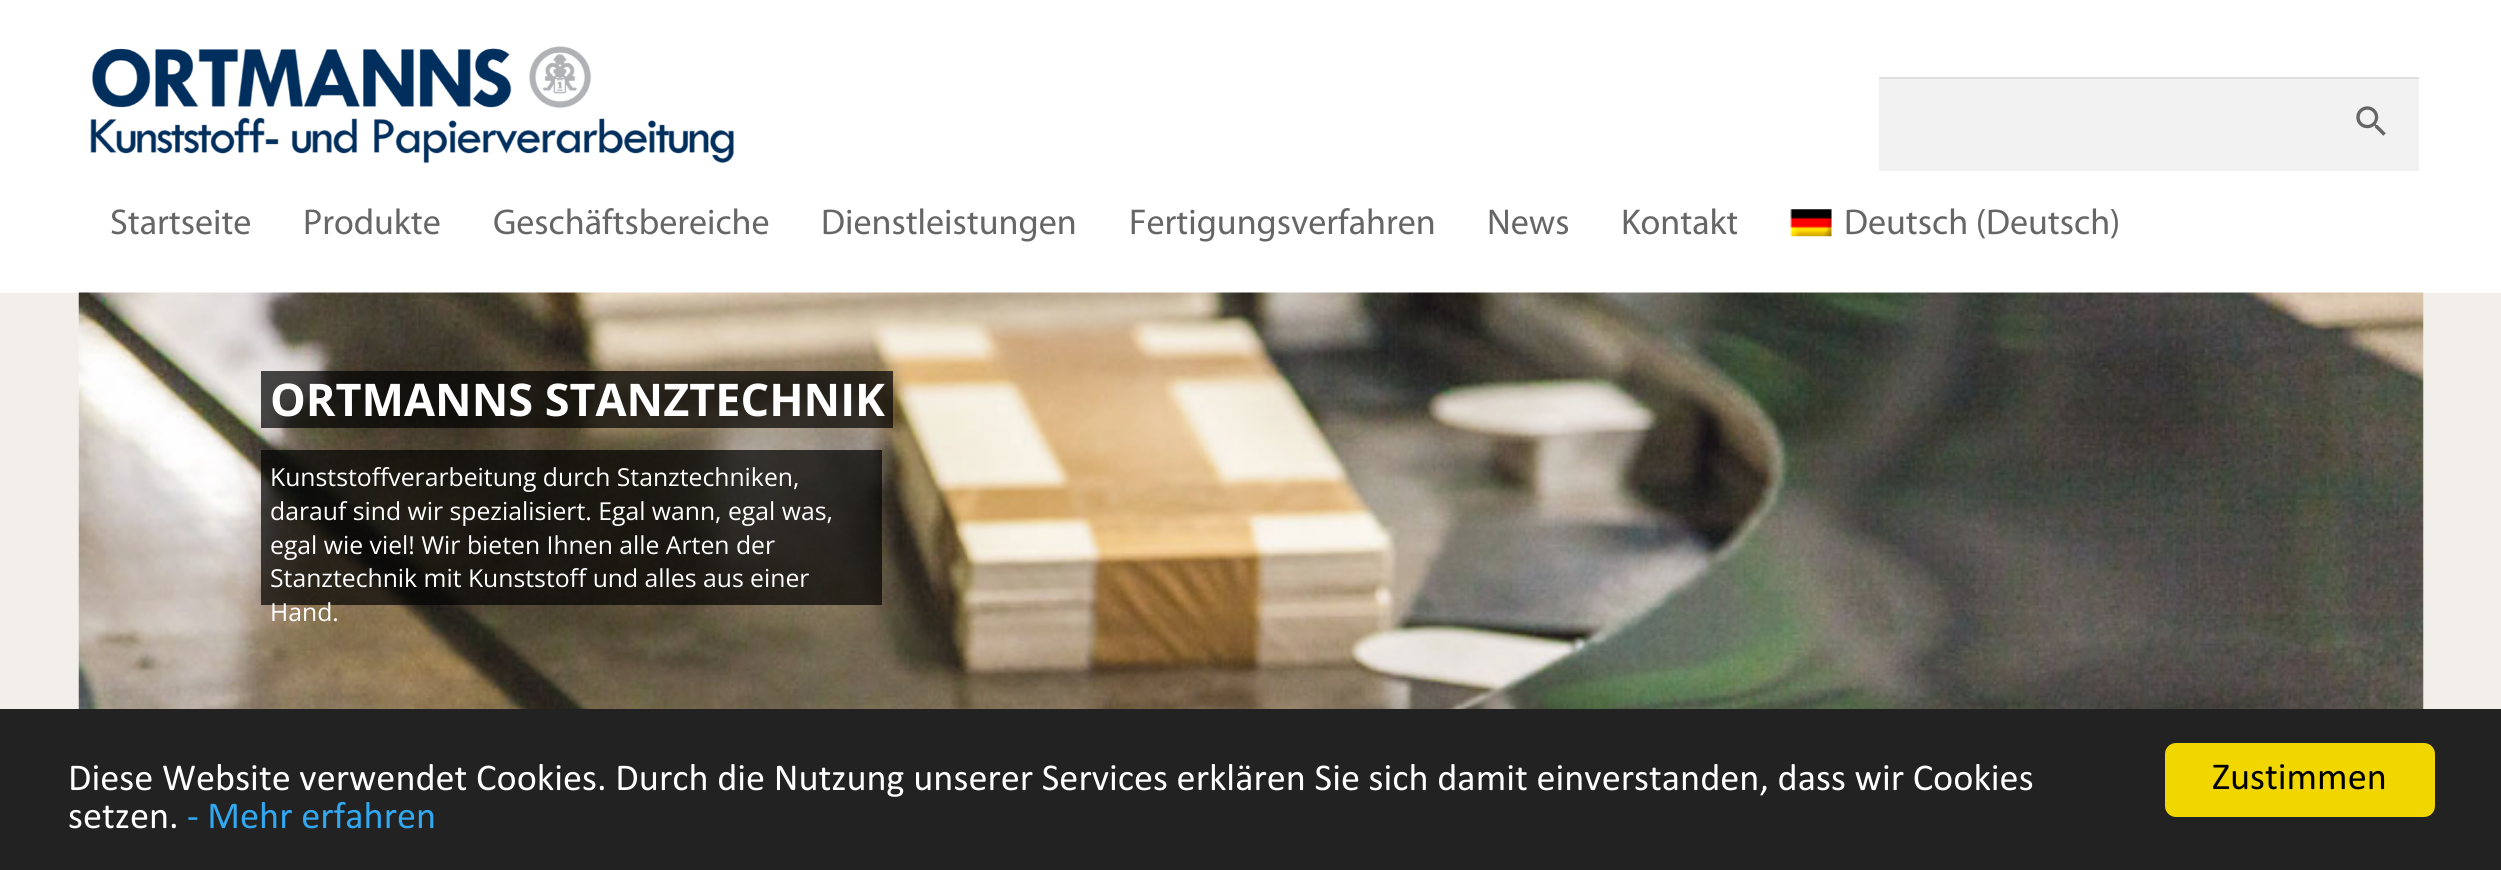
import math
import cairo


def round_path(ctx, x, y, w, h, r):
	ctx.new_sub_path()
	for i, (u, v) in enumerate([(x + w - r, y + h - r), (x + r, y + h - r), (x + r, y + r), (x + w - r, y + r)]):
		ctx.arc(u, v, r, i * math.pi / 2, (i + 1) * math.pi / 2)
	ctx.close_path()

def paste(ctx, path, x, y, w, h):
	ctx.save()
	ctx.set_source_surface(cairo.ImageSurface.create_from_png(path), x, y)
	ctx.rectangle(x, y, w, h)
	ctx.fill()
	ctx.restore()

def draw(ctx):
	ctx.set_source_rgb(1, 1, 1)
	ctx.paint()
	paste(ctx, 'media/1.png', 90, 46, 644, 118)
	ctx.set_source_rgb(0.949, 0.949, 0.949)
	ctx.rectangle(1879, 79, 540, 92)
	ctx.fill()
	ctx.set_source_rgb(0.875, 0.875, 0.875)
	ctx.rectangle(1879, 77, 540, 2)
	ctx.fill()
	paste(ctx, 'media/2.png', 2356, 106, 30, 30)
	ctx.select_font_face('Myriad')
	ctx.set_font_size(36)
	ctx.set_source_rgb(0.4, 0.4, 0.4)
	for x, y, s in [
		(110, 234, 'Startseite'),
		(303, 234, 'Produkte'),
		(493, 234, 'Geschäftsbereiche'),
		(821, 234, 'Dienstleistungen'),
		(1129, 234, 'Fertigungsverfahren'),
		(1487, 234, 'News'),
		(1621, 234, 'Kontakt'),
	]:
		ctx.move_to(x, y)
		ctx.show_text(s)
	paste(ctx, 'media/3.png', 1790, 209, 42, 28)
	ctx.move_to(1844, 234)
	ctx.show_text('Deutsch (Deutsch)')
	ctx.set_source_rgb(0.949, 0.937, 0.918)
	ctx.rectangle(0, 293, 2501, 416)
	ctx.fill()
	paste(ctx, 'media/4.png', 78, 292, 2346, 417)
	ctx.set_source_rgba(0.008, 0.008, 0.008, 0.71)
	ctx.rectangle(261, 371, 632, 57)
	ctx.fill()
	ctx.select_font_face('Open Sans', cairo.FONT_SLANT_NORMAL, cairo.FONT_WEIGHT_BOLD)
	ctx.set_font_size(45)
	ctx.set_source_rgb(1, 1, 1)
	ctx.move_to(270, 416)
	ctx.show_text('ORTMANNS STANZTECHNIK')
	ctx.set_source_rgba(0.008, 0.008, 0.008, 0.71)
	ctx.rectangle(261, 450, 621, 155)
	ctx.fill()
	ctx.select_font_face('Open Sans')
	ctx.set_font_size(24.75)
	ctx.set_source_rgb(1, 1, 1)
	for x, y, s in [
		(270, 486, 'Kunststoffverarbeitung durch Stanztechniken,'),
		(270, 520, 'darauf sind wir spezialisiert. Egal wann, egal was,'),
		(270, 554, 'egal wie viel! Wir bieten Ihnen alle Arten der'),
		(270, 587, 'Stanztechnik mit Kunststoff und alles aus einer'),
		(270, 621, 'Hand.'),
	]:
		ctx.move_to(x, y)
		ctx.show_text(s)
	ctx.set_source_rgb(0.133, 0.133, 0.133)
	ctx.rectangle(0, 709, 2501, 161)
	ctx.fill()
	ctx.select_font_face('Calibri')
	ctx.set_font_size(38.25)
	ctx.set_source_rgb(1, 1, 1)
	ctx.move_to(68, 790)
	ctx.show_text('Diese Website verwendet Cookies. Durch die Nutzung unserer Services erklären Sie sich damit einverstanden, dass wir Cookies')
	ctx.move_to(68, 828)
	ctx.show_text('setzen.')
	ctx.set_source_rgb(0.192, 0.659, 0.941)
	ctx.move_to(187, 828)
	ctx.show_text('- Mehr erfahren')
	ctx.set_source_rgb(0.945, 0.839, 0)
	round_path(ctx, 2165, 743, 270, 74, 11)
	ctx.fill()
	ctx.set_source_rgb(0, 0, 0)
	ctx.move_to(2212, 789)
	ctx.show_text('Zustimmen')


surface = cairo.ImageSurface(cairo.FORMAT_RGB24, 2501, 870)
ctx = cairo.Context(surface)
options = cairo.FontOptions()
options.set_hint_metrics(cairo.HINT_METRICS_OFF)
options.set_hint_style(cairo.HINT_STYLE_NONE)
ctx.set_font_options(options)
ctx.set_miter_limit(4)
draw(ctx)
surface.write_to_png('image.png')
